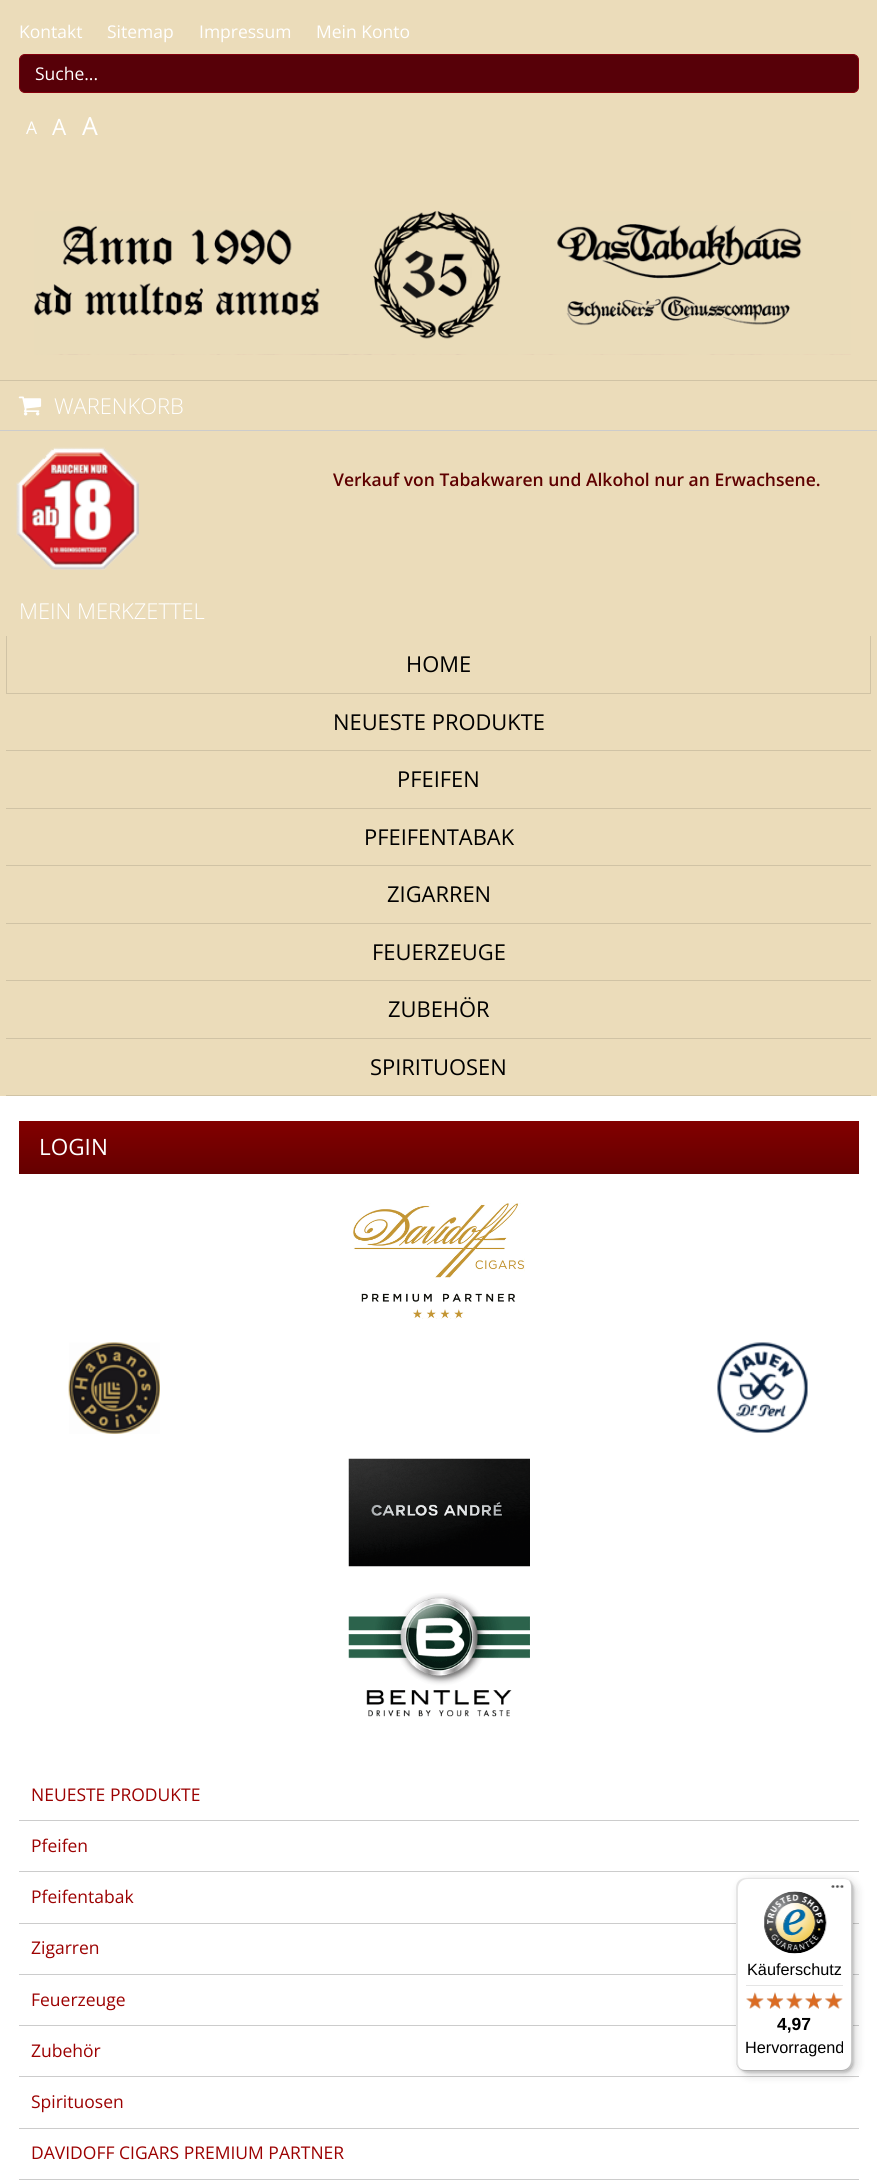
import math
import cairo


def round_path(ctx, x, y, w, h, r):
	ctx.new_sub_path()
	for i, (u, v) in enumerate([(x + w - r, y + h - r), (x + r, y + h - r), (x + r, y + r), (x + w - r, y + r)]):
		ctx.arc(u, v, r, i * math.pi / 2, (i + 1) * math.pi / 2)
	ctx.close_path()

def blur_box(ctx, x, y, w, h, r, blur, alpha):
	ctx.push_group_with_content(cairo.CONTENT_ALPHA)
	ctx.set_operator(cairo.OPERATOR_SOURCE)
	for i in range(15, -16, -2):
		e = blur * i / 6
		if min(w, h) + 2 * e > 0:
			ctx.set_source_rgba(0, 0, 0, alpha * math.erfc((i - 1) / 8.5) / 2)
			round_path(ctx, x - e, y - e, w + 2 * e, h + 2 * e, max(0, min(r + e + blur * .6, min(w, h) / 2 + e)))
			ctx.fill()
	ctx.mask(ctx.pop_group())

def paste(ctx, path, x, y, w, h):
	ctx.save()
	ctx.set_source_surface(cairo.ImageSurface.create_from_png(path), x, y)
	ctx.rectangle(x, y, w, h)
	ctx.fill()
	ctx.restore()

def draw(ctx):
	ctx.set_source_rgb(0.918, 0.863, 0.729)
	ctx.paint()
	ctx.select_font_face('Open Sans')
	ctx.set_font_size(17.5)
	ctx.set_source_rgb(1, 1, 1)
	for x, y, s in [
		(19, 38, 'Kontakt'),
		(107, 38, 'Sitemap'),
		(199, 38, 'Impressum'),
		(316, 38, 'Mein Konto'),
	]:
		ctx.move_to(x, y)
		ctx.show_text(s)
	ctx.set_source_rgb(0.341, 0, 0.035)
	round_path(ctx, 19.5, 54.5, 839, 38, 5.5)
	ctx.fill_preserve()
	ctx.set_source_rgb(0.518, 0, 0.051)
	ctx.set_line_width(1)
	ctx.stroke()
	ctx.set_source_rgb(1, 1, 1)
	ctx.move_to(35, 80)
	ctx.show_text('Suche...')
	ctx.move_to(26, 134)
	ctx.show_text('A')
	ctx.set_font_size(22.5)
	ctx.move_to(52, 135)
	ctx.show_text('A')
	ctx.set_font_size(25)
	ctx.move_to(82, 135)
	ctx.show_text('A')
	paste(ctx, 'media/1.png', 34, 211, 817, 144)
	ctx.set_source_rgb(0.816, 0.765, 0.647)
	ctx.rectangle(0, 380, 877, 1)
	ctx.fill()
	ctx.set_source_rgb(0.8, 0.8, 0.8)
	ctx.rectangle(0, 430, 877, 1)
	ctx.fill()
	paste(ctx, 'media/2.png', 18, 396, 24, 20)
	ctx.select_font_face('Open Sans Light')
	ctx.set_font_size(21.9)
	ctx.set_source_rgb(1, 1, 1)
	ctx.move_to(54, 414)
	ctx.show_text('WARENKORB')
	paste(ctx, 'media/3.png', 16, 447, 123, 123)
	ctx.select_font_face('Open Sans SemiBold')
	ctx.set_font_size(17.5)
	ctx.set_source_rgb(0.369, 0, 0)
	ctx.move_to(333, 486)
	ctx.show_text('Verkauf von Tabakwaren und Alkohol nur an Erwachsene.')
	ctx.select_font_face('Open Sans Light')
	ctx.set_font_size(21.9)
	ctx.set_source_rgb(1, 1, 1)
	ctx.move_to(19, 619)
	ctx.show_text('MEIN MERKZETTEL')
	ctx.set_source_rgb(0.816, 0.765, 0.647)
	ctx.rectangle(870, 636, 1, 58)
	ctx.rectangle(6, 693, 865, 1)
	ctx.rectangle(6, 636, 1, 58)
	ctx.fill()
	ctx.select_font_face('Open Sans')
	ctx.set_source_rgb(0, 0, 0)
	ctx.move_to(406, 672)
	ctx.show_text('HOME')
	ctx.set_source_rgb(0.816, 0.765, 0.647)
	ctx.rectangle(6, 750, 865, 1)
	ctx.fill()
	ctx.set_source_rgb(0, 0, 0)
	ctx.move_to(333, 730)
	ctx.show_text('NEUESTE PRODUKTE')
	ctx.set_source_rgb(0.816, 0.765, 0.647)
	ctx.rectangle(6, 808, 865, 1)
	ctx.fill()
	ctx.set_source_rgb(0, 0, 0)
	ctx.move_to(397, 787)
	ctx.show_text('PFEIFEN')
	ctx.set_source_rgb(0.816, 0.765, 0.647)
	ctx.rectangle(6, 865, 865, 1)
	ctx.fill()
	ctx.set_source_rgb(0, 0, 0)
	ctx.move_to(364, 845)
	ctx.show_text('PFEIFENTABAK')
	ctx.set_source_rgb(0.816, 0.765, 0.647)
	ctx.rectangle(6, 923, 865, 1)
	ctx.fill()
	ctx.set_source_rgb(0, 0, 0)
	ctx.move_to(387, 902)
	ctx.show_text('ZIGARREN')
	ctx.set_source_rgb(0.816, 0.765, 0.647)
	ctx.rectangle(6, 980, 865, 1)
	ctx.fill()
	ctx.set_source_rgb(0, 0, 0)
	ctx.move_to(372, 960)
	ctx.show_text('FEUERZEUGE')
	ctx.set_source_rgb(0.816, 0.765, 0.647)
	ctx.rectangle(6, 1038, 865, 1)
	ctx.fill()
	ctx.set_source_rgb(0, 0, 0)
	ctx.move_to(388, 1017)
	ctx.show_text('ZUBEHÖR')
	ctx.set_source_rgb(0.816, 0.765, 0.647)
	ctx.rectangle(6, 1095, 865, 1)
	ctx.fill()
	ctx.set_source_rgb(0, 0, 0)
	ctx.move_to(370, 1075)
	ctx.show_text('SPIRITUOSEN')
	ctx.set_source_rgb(1, 1, 1)
	ctx.rectangle(0, 1096, 877, 1086)
	ctx.fill()
	gradient = cairo.LinearGradient(439, 1121, 439, 1174)
	gradient.add_color_stop_rgba(0, 0.51, 0, 0, 1)
	gradient.add_color_stop_rgba(1, 0.396, 0, 0, 1)
	ctx.set_source(gradient)
	ctx.rectangle(19, 1121, 840, 53)
	ctx.fill()
	ctx.set_font_size(22.5)
	ctx.set_source_rgb(1, 1, 1)
	ctx.move_to(39, 1155)
	ctx.show_text('LOGIN')
	paste(ctx, 'media/4.png', 353, 1203, 172, 116)
	paste(ctx, 'media/5.png', 68, 1342, 92, 92)
	paste(ctx, 'media/6.png', 717, 1342, 91, 91)
	paste(ctx, 'media/7.png', 348, 1458, 182, 109)
	paste(ctx, 'media/8.png', 348, 1593, 182, 124)
	ctx.set_source_rgb(0.8, 0.8, 0.8)
	ctx.rectangle(19, 1820, 840, 1)
	ctx.fill()
	ctx.set_font_size(17.5)
	ctx.set_source_rgb(0.612, 0.004, 0.004)
	ctx.move_to(31, 1801)
	ctx.show_text('NEUESTE PRODUKTE')
	ctx.set_source_rgb(0.8, 0.8, 0.8)
	ctx.rectangle(19, 1871, 840, 1)
	ctx.fill()
	ctx.set_source_rgb(0.612, 0.004, 0.004)
	ctx.move_to(31, 1852)
	ctx.show_text('Pfeifen')
	ctx.set_source_rgb(0.8, 0.8, 0.8)
	ctx.rectangle(19, 1923, 840, 1)
	ctx.fill()
	ctx.set_source_rgb(0.612, 0.004, 0.004)
	ctx.move_to(31, 1903)
	ctx.show_text('Pfeifentabak')
	ctx.set_source_rgb(0.8, 0.8, 0.8)
	ctx.rectangle(19, 1974, 840, 1)
	ctx.fill()
	ctx.set_source_rgb(0.612, 0.004, 0.004)
	ctx.move_to(31, 1954)
	ctx.show_text('Zigarren')
	ctx.set_source_rgb(0.8, 0.8, 0.8)
	ctx.rectangle(19, 2025, 840, 1)
	ctx.fill()
	ctx.set_source_rgb(0.612, 0.004, 0.004)
	ctx.move_to(31, 2006)
	ctx.show_text('Feuerzeuge')
	ctx.set_source_rgb(0.8, 0.8, 0.8)
	ctx.rectangle(19, 2076, 840, 1)
	ctx.fill()
	ctx.set_source_rgb(0.612, 0.004, 0.004)
	ctx.move_to(31, 2057)
	ctx.show_text('Zubehör')
	ctx.set_source_rgb(0.8, 0.8, 0.8)
	ctx.rectangle(19, 2128, 840, 1)
	ctx.fill()
	ctx.set_source_rgb(0.612, 0.004, 0.004)
	ctx.move_to(31, 2108)
	ctx.show_text('Spirituosen')
	ctx.set_source_rgb(0.8, 0.8, 0.8)
	ctx.rectangle(19, 2179, 840, 1)
	ctx.fill()
	ctx.set_source_rgb(0.612, 0.004, 0.004)
	ctx.move_to(31, 2159)
	ctx.show_text('DAVIDOFF CIGARS PREMIUM PARTNER')
	ctx.set_source_rgb(0, 0, 0)
	blur_box(ctx, 740, 1881, 116, 194, 10, 5, 0.15)
	blur_box(ctx, 738, 1879, 116, 194, 10, 1, 0.15)
	ctx.set_source_rgb(1, 1, 1)
	round_path(ctx, 736, 1878, 117, 193, 10)
	ctx.fill()
	ctx.set_source_rgb(0.898, 0.898, 0.898)
	ctx.new_path()
	ctx.move_to(748, 1879)
	ctx.line_to(844, 1879)
	ctx.curve_to(846, 1879, 849, 1880, 851, 1882)
	ctx.curve_to(849, 1879, 846, 1878, 843, 1878)
	ctx.line_to(746, 1878)
	ctx.curve_to(740, 1878, 736, 1882, 736, 1888)
	ctx.line_to(736, 2061)
	ctx.curve_to(736, 2065, 738, 2068, 742, 2070)
	ctx.curve_to(739, 2068, 738, 2065, 738, 2062)
	ctx.line_to(738, 1889)
	ctx.curve_to(738, 1883, 742, 1879, 748, 1879)
	ctx.close_path()
	ctx.fill()
	ctx.set_source_rgba(0, 0, 0, 0.2)
	ctx.new_path()
	ctx.move_to(740, 2069)
	ctx.curve_to(741, 2070, 744, 2071, 746, 2071)
	ctx.line_to(843, 2071)
	ctx.curve_to(849, 2071, 853, 2067, 853, 2061)
	ctx.line_to(853, 1888)
	ctx.curve_to(853, 1885, 851, 1882, 849, 1880)
	ctx.curve_to(850, 1882, 851, 1884, 851, 1886)
	ctx.line_to(851, 2060)
	ctx.curve_to(851, 2066, 847, 2070, 841, 2070)
	ctx.line_to(745, 2070)
	ctx.curve_to(743, 2070, 741, 2070, 740, 2069)
	ctx.close_path()
	ctx.fill()
	ctx.set_source_rgba(0.196, 0.196, 0.196, 0.2)
	ctx.new_path()
	ctx.move_to(736, 2060)
	ctx.line_to(736, 2061)
	ctx.curve_to(736, 2067, 740, 2071, 746, 2071)
	ctx.line_to(843, 2071)
	ctx.curve_to(849, 2071, 853, 2067, 853, 2061)
	ctx.line_to(853, 1888)
	ctx.curve_to(853, 1885, 852, 1882, 850, 1880)
	ctx.curve_to(851, 1882, 852, 1884, 852, 1887)
	ctx.line_to(852, 2060)
	ctx.curve_to(852, 2066, 847, 2070, 842, 2070)
	ctx.line_to(746, 2070)
	ctx.curve_to(740, 2070, 736, 2066, 736, 2060)
	ctx.close_path()
	ctx.fill()
	ctx.set_source_rgba(1, 1, 1, 0.3)
	ctx.new_path()
	ctx.move_to(842, 2071)
	ctx.line_to(843, 2071)
	ctx.curve_to(849, 2071, 853, 2067, 853, 2061)
	ctx.line_to(853, 1888)
	ctx.curve_to(853, 1885, 852, 1882, 850, 1880)
	ctx.curve_to(851, 1882, 852, 1884, 852, 1887)
	ctx.line_to(852, 2061)
	ctx.curve_to(852, 2066, 847, 2071, 842, 2071)
	ctx.close_path()
	ctx.fill()
	paste(ctx, 'media/9.png', 831, 1885, 13, 3)
	paste(ctx, 'media/10.png', 764, 1891, 63, 63)
	ctx.select_font_face('Liberation Sans')
	ctx.set_font_size(16.25)
	ctx.set_source_rgb(0, 0, 0)
	ctx.move_to(747, 1975)
	ctx.show_text('Käuferschutz')
	ctx.set_source_rgb(0.898, 0.898, 0.898)
	ctx.rectangle(746, 1985, 97, 1)
	ctx.fill()
	paste(ctx, 'media/11.png', 746, 1993, 18, 15)
	paste(ctx, 'media/12.png', 767, 1992, 16, 17)
	paste(ctx, 'media/13.png', 786, 1993, 17, 16)
	paste(ctx, 'media/14.png', 805, 1992, 17, 17)
	paste(ctx, 'media/15.png', 825, 1993, 18, 16)
	paste(ctx, 'media/16.png', 746, 1992, 18, 17)
	paste(ctx, 'media/17.png', 766, 1992, 18, 17)
	paste(ctx, 'media/18.png', 786, 1992, 17, 17)
	paste(ctx, 'media/19.png', 805, 1992, 17, 17)
	paste(ctx, 'media/20.png', 825, 1992, 18, 17)
	ctx.select_font_face('Liberation Sans', cairo.FONT_SLANT_NORMAL, cairo.FONT_WEIGHT_BOLD)
	ctx.set_font_size(17.5)
	ctx.set_source_rgb(0, 0, 0)
	ctx.move_to(777, 2030)
	ctx.show_text('4,97')
	ctx.select_font_face('Liberation Sans')
	ctx.set_font_size(16.25)
	ctx.move_to(745, 2053)
	ctx.show_text('Hervorragend')


surface = cairo.ImageSurface(cairo.FORMAT_RGB24, 877, 2182)
ctx = cairo.Context(surface)
options = cairo.FontOptions()
options.set_hint_metrics(cairo.HINT_METRICS_OFF)
options.set_hint_style(cairo.HINT_STYLE_NONE)
ctx.set_font_options(options)
ctx.set_miter_limit(4)
draw(ctx)
surface.write_to_png('image.png')
